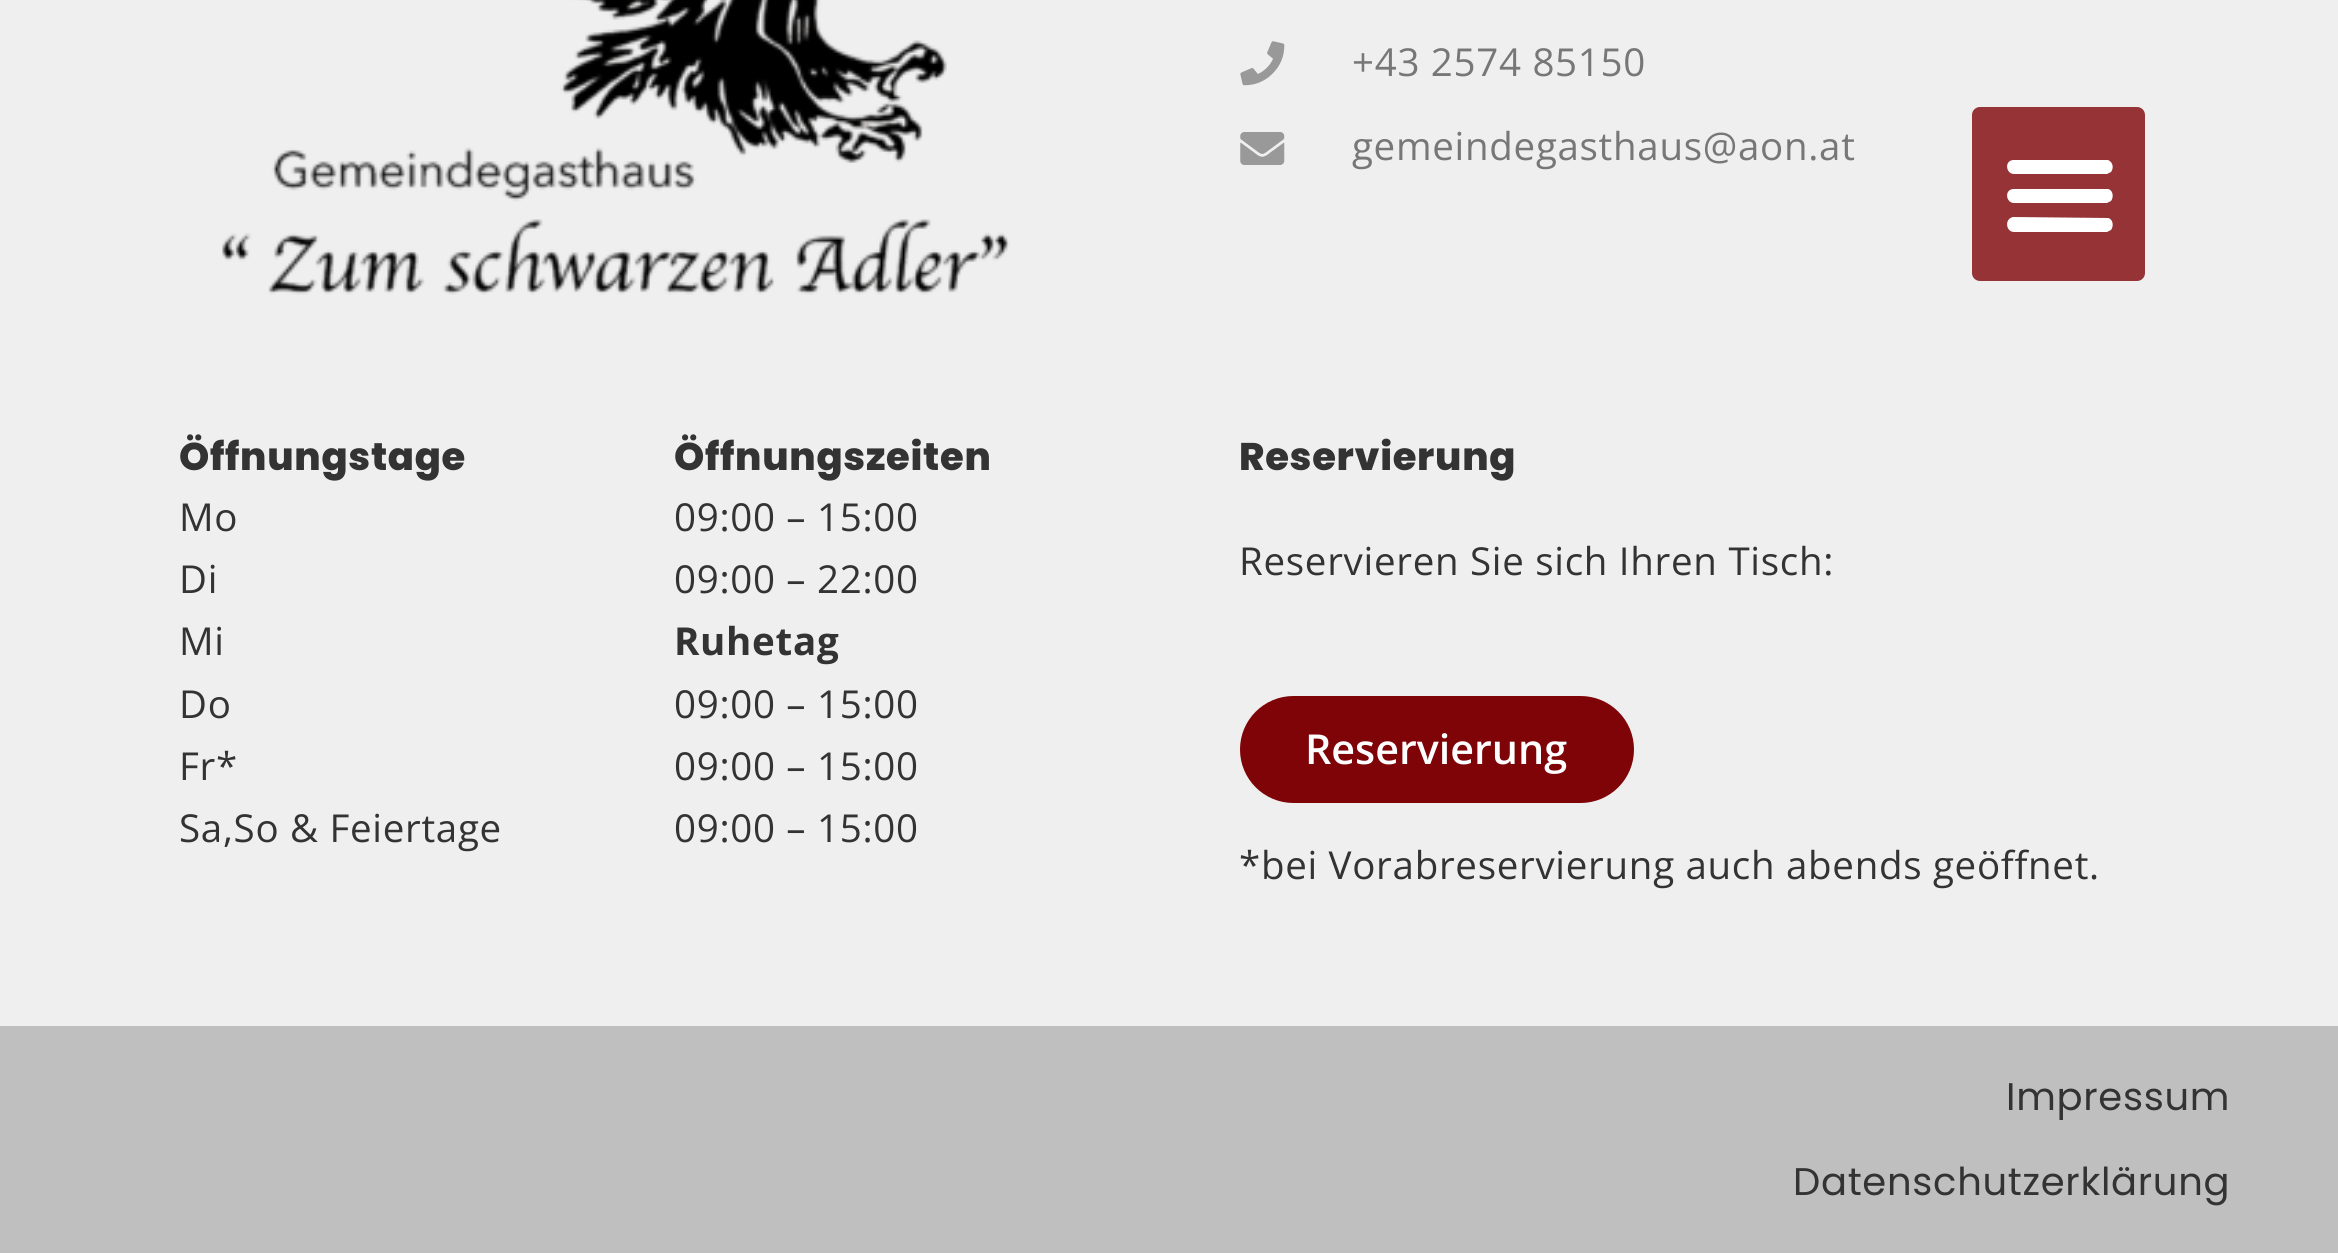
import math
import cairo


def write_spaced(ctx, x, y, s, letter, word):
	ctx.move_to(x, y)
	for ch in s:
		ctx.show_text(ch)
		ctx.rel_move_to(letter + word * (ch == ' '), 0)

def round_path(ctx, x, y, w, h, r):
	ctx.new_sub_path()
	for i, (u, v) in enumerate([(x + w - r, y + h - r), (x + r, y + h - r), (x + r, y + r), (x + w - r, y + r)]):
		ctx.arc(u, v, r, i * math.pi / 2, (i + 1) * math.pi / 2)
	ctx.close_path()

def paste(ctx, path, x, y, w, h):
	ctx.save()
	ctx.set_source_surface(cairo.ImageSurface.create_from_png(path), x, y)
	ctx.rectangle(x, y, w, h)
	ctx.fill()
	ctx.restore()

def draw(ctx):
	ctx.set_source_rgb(0.937, 0.937, 0.937)
	ctx.paint()
	paste(ctx, 'media/1.png', 222, 0, 788, 295)
	paste(ctx, 'media/2.png', 1240, 41, 45, 45)
	ctx.select_font_face('Open Sans')
	ctx.set_font_size(38.5)
	ctx.set_source_rgb(0.467, 0.467, 0.467)
	write_spaced(ctx, 1352, 76, '+43 2574 85150', 0.7, 0)
	paste(ctx, 'media/3.png', 1240, 132, 45, 33)
	write_spaced(ctx, 1352, 160, 'gemeindegasthaus@aon.at', 0.7, 0)
	ctx.select_font_face('Poppins ExtraBold')
	ctx.set_source_rgb(0.2, 0.2, 0.2)
	write_spaced(ctx, 179, 470, 'Öffnungstage', 0.7, 0)
	ctx.select_font_face('Open Sans')
	for x, y, s in [
		(179, 531, 'Mo'),
		(179, 593, 'Di'),
		(179, 655, 'Mi'),
		(179, 718, 'Do'),
		(179, 780, 'Fr*'),
		(179, 842, 'Sa,So & Feiertage'),
	]:
		write_spaced(ctx, x, y, s, 0.7, 0)
	ctx.select_font_face('Poppins ExtraBold')
	write_spaced(ctx, 674, 470, 'Öffnungszeiten', 0.7, 0)
	ctx.select_font_face('Open Sans')
	write_spaced(ctx, 674, 531, '09:00 – 15:00', 0.7, 0)
	write_spaced(ctx, 674, 593, '09:00 – 22:00', 0.7, 0)
	ctx.select_font_face('Open Sans', cairo.FONT_SLANT_NORMAL, cairo.FONT_WEIGHT_BOLD)
	write_spaced(ctx, 674, 655, 'Ruhetag', 0.7, 0)
	ctx.select_font_face('Open Sans')
	for x, y, s in [
		(674, 718, '09:00 – 15:00'),
		(674, 780, '09:00 – 15:00'),
		(674, 842, '09:00 – 15:00'),
	]:
		write_spaced(ctx, x, y, s, 0.7, 0)
	ctx.select_font_face('Poppins ExtraBold')
	write_spaced(ctx, 1239, 470, 'Reservierung', 0.7, 0)
	ctx.select_font_face('Open Sans')
	write_spaced(ctx, 1239, 575, 'Reservieren Sie sich Ihren Tisch:', 0.7, 0)
	ctx.set_source_rgb(0.494, 0.016, 0.031)
	round_path(ctx, 1240, 696, 394, 107, 53.5)
	ctx.fill()
	ctx.select_font_face('Open Sans SemiBold')
	ctx.set_font_size(41.25)
	ctx.set_source_rgb(1, 1, 1)
	ctx.move_to(1305, 764)
	ctx.show_text('Reservierung')
	ctx.select_font_face('Open Sans')
	ctx.set_font_size(38.5)
	ctx.set_source_rgb(0.2, 0.2, 0.2)
	write_spaced(ctx, 1239, 879, '*bei Vorabreservierung auch abends geöffnet.', 0.7, 0)
	ctx.set_source_rgb(0.749, 0.749, 0.749)
	ctx.rectangle(0, 1026, 2338, 227)
	ctx.fill()
	ctx.select_font_face('Poppins')
	ctx.set_source_rgb(0.2, 0.2, 0.2)
	write_spaced(ctx, 2006, 1110, 'Impressum', 0.7, 0)
	write_spaced(ctx, 1793, 1195, 'Datenschutzerklärung', 0.7, 0)
	ctx.set_source_rgb(0.584, 0.2, 0.212)
	round_path(ctx, 1972, 107, 173, 174, 8)
	ctx.fill()
	ctx.set_source_rgb(1, 1, 1)
	ctx.new_path()
	ctx.move_to(2014, 174)
	ctx.line_to(2107, 174)
	ctx.line_to(2111, 172)
	ctx.curve_to(2114, 168, 2113, 162, 2108, 160)
	ctx.line_to(2013, 160)
	ctx.curve_to(2004, 161, 2006, 174, 2014, 174)
	ctx.close_path()
	ctx.move_to(2014, 203)
	ctx.line_to(2107, 203)
	ctx.line_to(2111, 201)
	ctx.curve_to(2114, 197, 2113, 190, 2108, 189)
	ctx.line_to(2013, 189)
	ctx.curve_to(2004, 190, 2006, 203, 2014, 203)
	ctx.close_path()
	ctx.move_to(2014, 232)
	ctx.line_to(2107, 232)
	ctx.line_to(2111, 230)
	ctx.curve_to(2114, 226, 2113, 219, 2108, 218)
	ctx.line_to(2013, 217)
	ctx.curve_to(2004, 219, 2006, 232, 2014, 232)
	ctx.close_path()
	ctx.fill()


surface = cairo.ImageSurface(cairo.FORMAT_RGB24, 2338, 1253)
ctx = cairo.Context(surface)
options = cairo.FontOptions()
options.set_hint_metrics(cairo.HINT_METRICS_OFF)
options.set_hint_style(cairo.HINT_STYLE_NONE)
ctx.set_font_options(options)
ctx.set_miter_limit(4)
draw(ctx)
surface.write_to_png('image.png')
